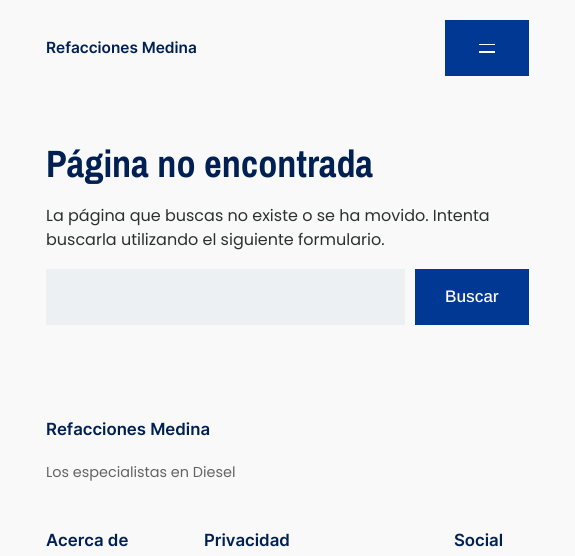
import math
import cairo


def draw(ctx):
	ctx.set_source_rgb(0.976, 0.976, 0.976)
	ctx.paint()
	ctx.select_font_face('Inter SemiBold')
	ctx.set_font_size(15.4)
	ctx.set_source_rgb(0, 0.125, 0.325)
	ctx.move_to(46, 53)
	ctx.show_text('Refacciones Medina')
	ctx.set_source_rgb(0, 0.22, 0.576)
	ctx.rectangle(445, 20, 84, 56)
	ctx.fill()
	ctx.set_source_rgb(1, 1, 1)
	ctx.rectangle(479, 44, 16, 1)
	ctx.rectangle(479, 51, 16, 2)
	ctx.fill()
	ctx.select_font_face('Pragati Narrow', cairo.FONT_SLANT_NORMAL, cairo.FONT_WEIGHT_BOLD)
	ctx.set_font_size(41.5)
	ctx.set_source_rgb(0, 0.125, 0.325)
	ctx.move_to(46, 177)
	ctx.show_text('Página no encontrada')
	ctx.select_font_face('Poppins')
	ctx.set_font_size(16)
	ctx.set_source_rgb(0.176, 0.188, 0.188)
	ctx.move_to(46, 221)
	ctx.show_text('La página que buscas no existe o se ha movido. Intenta')
	ctx.move_to(46, 245)
	ctx.show_text('buscarla utilizando el siguiente formulario.')
	ctx.set_source_rgb(0.929, 0.941, 0.953)
	ctx.rectangle(46, 269, 359, 56)
	ctx.fill()
	ctx.set_source_rgb(0, 0.22, 0.576)
	ctx.rectangle(415, 269, 114, 56)
	ctx.fill()
	ctx.select_font_face('Arimo Medium')
	ctx.set_font_size(16.75)
	ctx.set_source_rgb(1, 1, 1)
	ctx.move_to(445, 302)
	ctx.show_text('Buscar')
	ctx.select_font_face('Inter SemiBold')
	ctx.set_source_rgb(0, 0.125, 0.325)
	ctx.move_to(46, 435)
	ctx.show_text('Refacciones Medina')
	ctx.select_font_face('Poppins')
	ctx.set_font_size(14.4)
	ctx.set_source_rgb(0.388, 0.388, 0.388)
	ctx.move_to(46, 477)
	ctx.show_text('Los especialistas en Diesel')
	ctx.select_font_face('Inter SemiBold')
	ctx.set_font_size(16.75)
	ctx.set_source_rgb(0, 0.125, 0.325)
	for x, y, s in [
		(46, 546, 'Acerca de'),
		(204, 546, 'Privacidad'),
		(454, 546, 'Social'),
	]:
		ctx.move_to(x, y)
		ctx.show_text(s)


surface = cairo.ImageSurface(cairo.FORMAT_RGB24, 575, 556)
ctx = cairo.Context(surface)
options = cairo.FontOptions()
options.set_hint_metrics(cairo.HINT_METRICS_OFF)
options.set_hint_style(cairo.HINT_STYLE_NONE)
ctx.set_font_options(options)
ctx.set_miter_limit(4)
draw(ctx)
surface.write_to_png('image.png')
